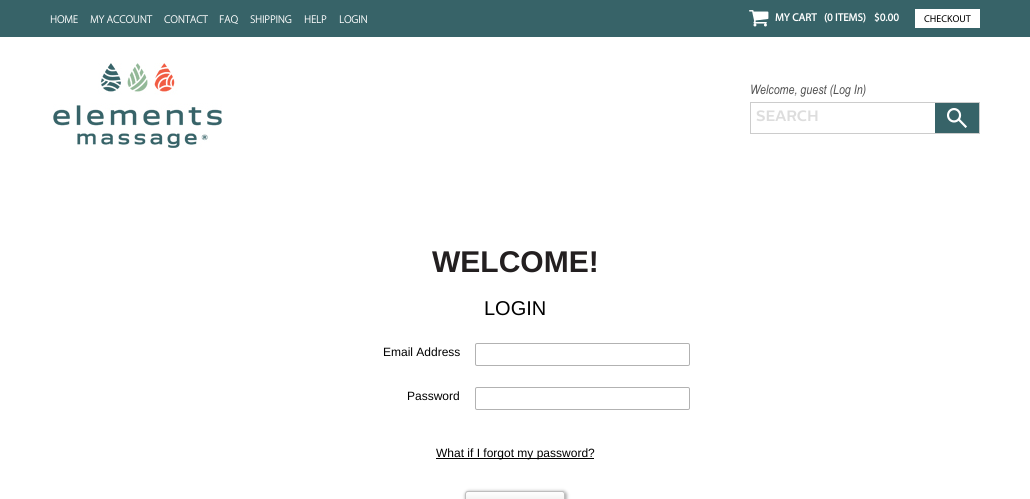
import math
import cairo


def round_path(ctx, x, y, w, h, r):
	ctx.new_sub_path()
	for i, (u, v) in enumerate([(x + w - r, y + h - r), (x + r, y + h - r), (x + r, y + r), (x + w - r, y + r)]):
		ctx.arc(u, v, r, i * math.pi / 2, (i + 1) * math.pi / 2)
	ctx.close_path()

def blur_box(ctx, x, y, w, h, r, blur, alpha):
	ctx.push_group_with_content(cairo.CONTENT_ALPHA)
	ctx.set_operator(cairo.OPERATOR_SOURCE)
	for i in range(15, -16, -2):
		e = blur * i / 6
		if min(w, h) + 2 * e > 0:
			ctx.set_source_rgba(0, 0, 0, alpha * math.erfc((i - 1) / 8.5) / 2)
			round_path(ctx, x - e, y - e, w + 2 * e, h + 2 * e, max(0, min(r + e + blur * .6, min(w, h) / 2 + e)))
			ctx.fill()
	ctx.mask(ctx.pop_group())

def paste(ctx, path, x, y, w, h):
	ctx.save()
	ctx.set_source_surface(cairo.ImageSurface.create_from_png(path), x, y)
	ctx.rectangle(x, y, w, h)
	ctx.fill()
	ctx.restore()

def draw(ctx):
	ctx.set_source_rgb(1, 1, 1)
	ctx.paint()
	ctx.set_source_rgb(0.216, 0.388, 0.408)
	ctx.rectangle(0, 0, 1030, 37)
	ctx.fill()
	ctx.select_font_face('Myriad', cairo.FONT_SLANT_NORMAL, cairo.FONT_WEIGHT_BOLD)
	ctx.set_font_size(11)
	ctx.set_source_rgb(1, 1, 1)
	for x, y, s in [
		(50, 23, 'HOME'),
		(90, 23, 'MY ACCOUNT'),
		(164, 23, 'CONTACT'),
		(219, 23, 'FAQ'),
		(250, 23, 'SHIPPING'),
		(304, 23, 'HELP'),
		(339, 23, 'LOGIN'),
	]:
		ctx.move_to(x, y)
		ctx.show_text(s)
	paste(ctx, 'media/1.png', 749, 10, 20, 17)
	ctx.select_font_face('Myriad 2', cairo.FONT_SLANT_NORMAL, cairo.FONT_WEIGHT_BOLD)
	for x, y, s in [
		(775, 21, 'MY CART'),
		(824, 21, '(0 ITEMS)'),
		(874, 21, '$0.00'),
	]:
		ctx.move_to(x, y)
		ctx.show_text(s)
	ctx.rectangle(915, 9, 65, 19)
	ctx.fill()
	ctx.select_font_face('Myriad')
	ctx.set_font_size(10)
	ctx.set_source_rgb(0, 0, 0)
	ctx.move_to(924, 22)
	ctx.show_text('CHECKOUT')
	paste(ctx, 'media/2.png', 53, 63, 169, 85)
	ctx.select_font_face('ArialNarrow', cairo.FONT_SLANT_ITALIC)
	ctx.set_font_size(13)
	ctx.set_source_rgb(0.322, 0.322, 0.322)
	ctx.move_to(750, 94)
	ctx.show_text('Welcome, guest (Log In)')
	ctx.set_source_rgb(0.216, 0.388, 0.408)
	ctx.rectangle(935, 103, 44, 30)
	ctx.fill()
	paste(ctx, 'media/3.png', 947, 108, 20, 20)
	ctx.set_source_rgb(0.8, 0.8, 0.8)
	ctx.rectangle(750, 102, 230, 1)
	ctx.rectangle(979, 102, 1, 32)
	ctx.rectangle(750, 133, 230, 1)
	ctx.rectangle(750, 102, 1, 32)
	ctx.fill()
	ctx.select_font_face('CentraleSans', cairo.FONT_SLANT_NORMAL, cairo.FONT_WEIGHT_BOLD)
	ctx.set_font_size(15)
	ctx.set_source_rgb(0.867, 0.867, 0.867)
	ctx.move_to(756, 121)
	ctx.show_text('SEARCH')
	ctx.select_font_face('Liberation Sans', cairo.FONT_SLANT_NORMAL, cairo.FONT_WEIGHT_BOLD)
	ctx.set_font_size(30)
	ctx.set_source_rgb(0.137, 0.122, 0.125)
	ctx.move_to(432, 272)
	ctx.show_text('WELCOME!')
	ctx.select_font_face('Liberation Sans')
	ctx.set_font_size(20)
	ctx.set_source_rgb(0, 0, 0)
	ctx.move_to(484, 315)
	ctx.show_text('LOGIN')
	ctx.set_font_size(12)
	ctx.move_to(383, 356)
	ctx.show_text('Email Address')
	round_path(ctx, 475.5, 343.5, 214, 22, 1.5)
	ctx.set_source_rgb(0.698, 0.698, 0.698)
	ctx.set_line_width(1)
	ctx.stroke()
	ctx.set_source_rgb(0, 0, 0)
	ctx.move_to(407, 400)
	ctx.show_text('Password')
	round_path(ctx, 475.5, 387.5, 214, 22, 1.5)
	ctx.set_source_rgb(0.698, 0.698, 0.698)
	ctx.stroke()
	ctx.set_source_rgb(0, 0, 0)
	ctx.rectangle(436, 458, 158, 1)
	ctx.fill()
	ctx.move_to(436, 457)
	ctx.show_text('What if I forgot my password?')
	ctx.set_source_rgb(0.698, 0.698, 0.698)
	blur_box(ctx, 465, 491, 102, 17, 4, 1.5, 1)
	ctx.save()
	round_path(ctx, 465, 491, 100, 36, 3)
	ctx.clip()
	gradient = cairo.LinearGradient(515, 492, 515, 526)
	gradient.add_color_stop_rgba(0, 0.996, 0.996, 0.996, 1)
	gradient.add_color_stop_rgba(0.19, 0.961, 0.961, 0.957, 1)
	gradient.add_color_stop_rgba(0.81, 0.91, 0.91, 0.91, 1)
	gradient.add_color_stop_rgba(1, 0.886, 0.886, 0.882, 1)
	ctx.set_source(gradient)
	ctx.rectangle(465, 492, 100, 7)
	ctx.fill()
	ctx.restore()
	round_path(ctx, 465.5, 491.5, 99, 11, 2.5)
	ctx.set_source_rgb(0.745, 0.745, 0.745)
	ctx.stroke()


surface = cairo.ImageSurface(cairo.FORMAT_RGB24, 1030, 499)
ctx = cairo.Context(surface)
options = cairo.FontOptions()
options.set_hint_metrics(cairo.HINT_METRICS_OFF)
options.set_hint_style(cairo.HINT_STYLE_NONE)
ctx.set_font_options(options)
ctx.set_miter_limit(4)
draw(ctx)
surface.write_to_png('image.png')
